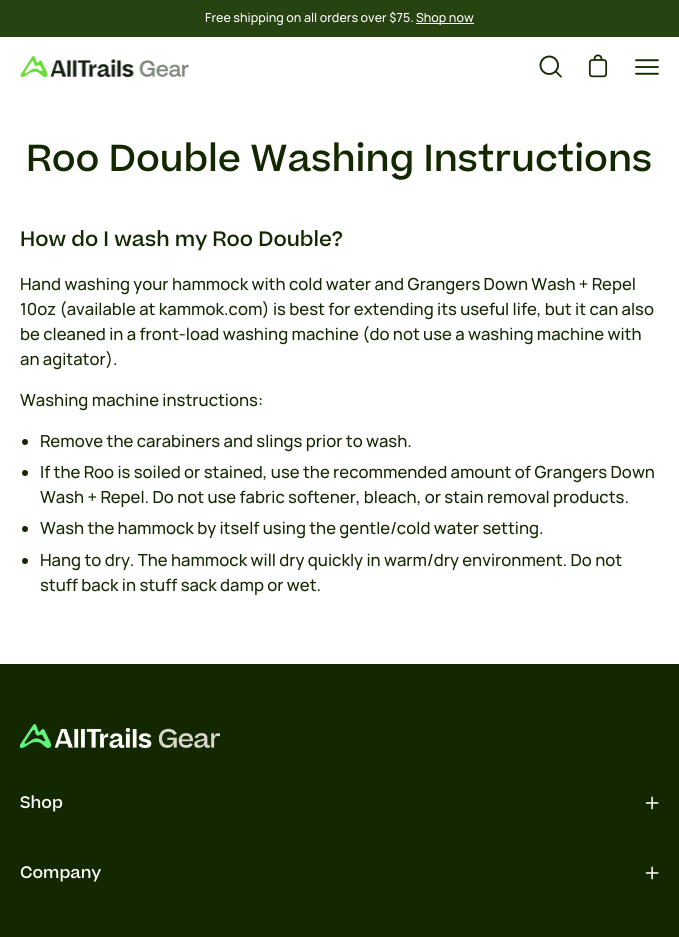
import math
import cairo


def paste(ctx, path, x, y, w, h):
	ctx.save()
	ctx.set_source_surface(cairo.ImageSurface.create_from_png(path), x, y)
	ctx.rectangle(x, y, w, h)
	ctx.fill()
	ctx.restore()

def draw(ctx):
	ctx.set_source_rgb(1, 1, 1)
	ctx.paint()
	ctx.set_source_rgb(0.149, 0.263, 0.067)
	ctx.rectangle(0, 0, 679, 37)
	ctx.fill()
	ctx.select_font_face('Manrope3 Medium')
	ctx.set_font_size(12)
	ctx.set_source_rgb(1, 1, 1)
	ctx.move_to(205, 22)
	ctx.show_text('Free shipping on all orders over $75.')
	ctx.rectangle(416, 23, 58, 1)
	ctx.fill()
	ctx.move_to(416, 22)
	ctx.show_text('Shop now')
	paste(ctx, 'media/1.png', 20, 56, 169, 21)
	paste(ctx, 'media/2.png', 539, 55, 23, 23)
	paste(ctx, 'media/3.png', 588, 54, 20, 24)
	paste(ctx, 'media/4.png', 635, 59, 24, 16)
	ctx.select_font_face('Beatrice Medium')
	ctx.set_font_size(36)
	ctx.set_source_rgb(0.078, 0.157, 0)
	ctx.move_to(26, 171)
	ctx.show_text('Roo Double Washing Instructions')
	ctx.set_font_size(20)
	ctx.move_to(20, 246)
	ctx.show_text('How do I wash my Roo Double?')
	ctx.select_font_face('Manrope3 Medium')
	ctx.set_font_size(16)
	for x, y, s in [
		(20, 290, 'Hand washing your hammock with cold water and Grangers Down Wash + Repel'),
		(20, 315, '10oz (available at kammok.com) is best for extending its useful life, but it can also'),
		(20, 340, 'be cleaned in a front-load washing machine (do not use a washing machine with'),
		(20, 365, 'an agitator).'),
		(20, 406, 'Washing machine instructions:'),
	]:
		ctx.move_to(x, y)
		ctx.show_text(s)
	ctx.new_path()
	ctx.arc(25, 442, 3, 0, 2 * math.pi)
	ctx.fill()
	ctx.move_to(40, 447)
	ctx.show_text('Remove the carabiners and slings prior to wash.')
	ctx.new_path()
	ctx.arc(25, 473, 3, 0, 2 * math.pi)
	ctx.fill()
	ctx.move_to(40, 478)
	ctx.show_text('If the Roo is soiled or stained, use the recommended amount of Grangers Down')
	ctx.move_to(40, 503)
	ctx.show_text('Wash + Repel. Do not use fabric softener, bleach, or stain removal products.')
	ctx.new_path()
	ctx.arc(25, 529, 3, 0, 2 * math.pi)
	ctx.fill()
	ctx.move_to(40, 534)
	ctx.show_text('Wash the hammock by itself using the gentle/cold water setting.')
	ctx.new_path()
	ctx.arc(25, 561, 3, 0, 2 * math.pi)
	ctx.fill()
	ctx.move_to(40, 566)
	ctx.show_text('Hang to dry. The hammock will dry quickly in warm/dry environment. Do not')
	ctx.move_to(40, 591)
	ctx.show_text('stuff back in stuff sack damp or wet.')
	ctx.rectangle(0, 664, 679, 273)
	ctx.fill()
	paste(ctx, 'media/5.png', 20, 724, 200, 24)
	ctx.select_font_face('Beatrice Medium')
	ctx.set_source_rgb(1, 1, 1)
	ctx.move_to(20, 808)
	ctx.show_text('Shop')
	paste(ctx, 'media/6.png', 645, 796, 14, 14)
	ctx.move_to(20, 878)
	ctx.show_text('Company')
	paste(ctx, 'media/6.png', 645, 866, 14, 14)


surface = cairo.ImageSurface(cairo.FORMAT_RGB24, 679, 937)
ctx = cairo.Context(surface)
options = cairo.FontOptions()
options.set_hint_metrics(cairo.HINT_METRICS_OFF)
options.set_hint_style(cairo.HINT_STYLE_NONE)
ctx.set_font_options(options)
ctx.set_miter_limit(4)
draw(ctx)
surface.write_to_png('image.png')
